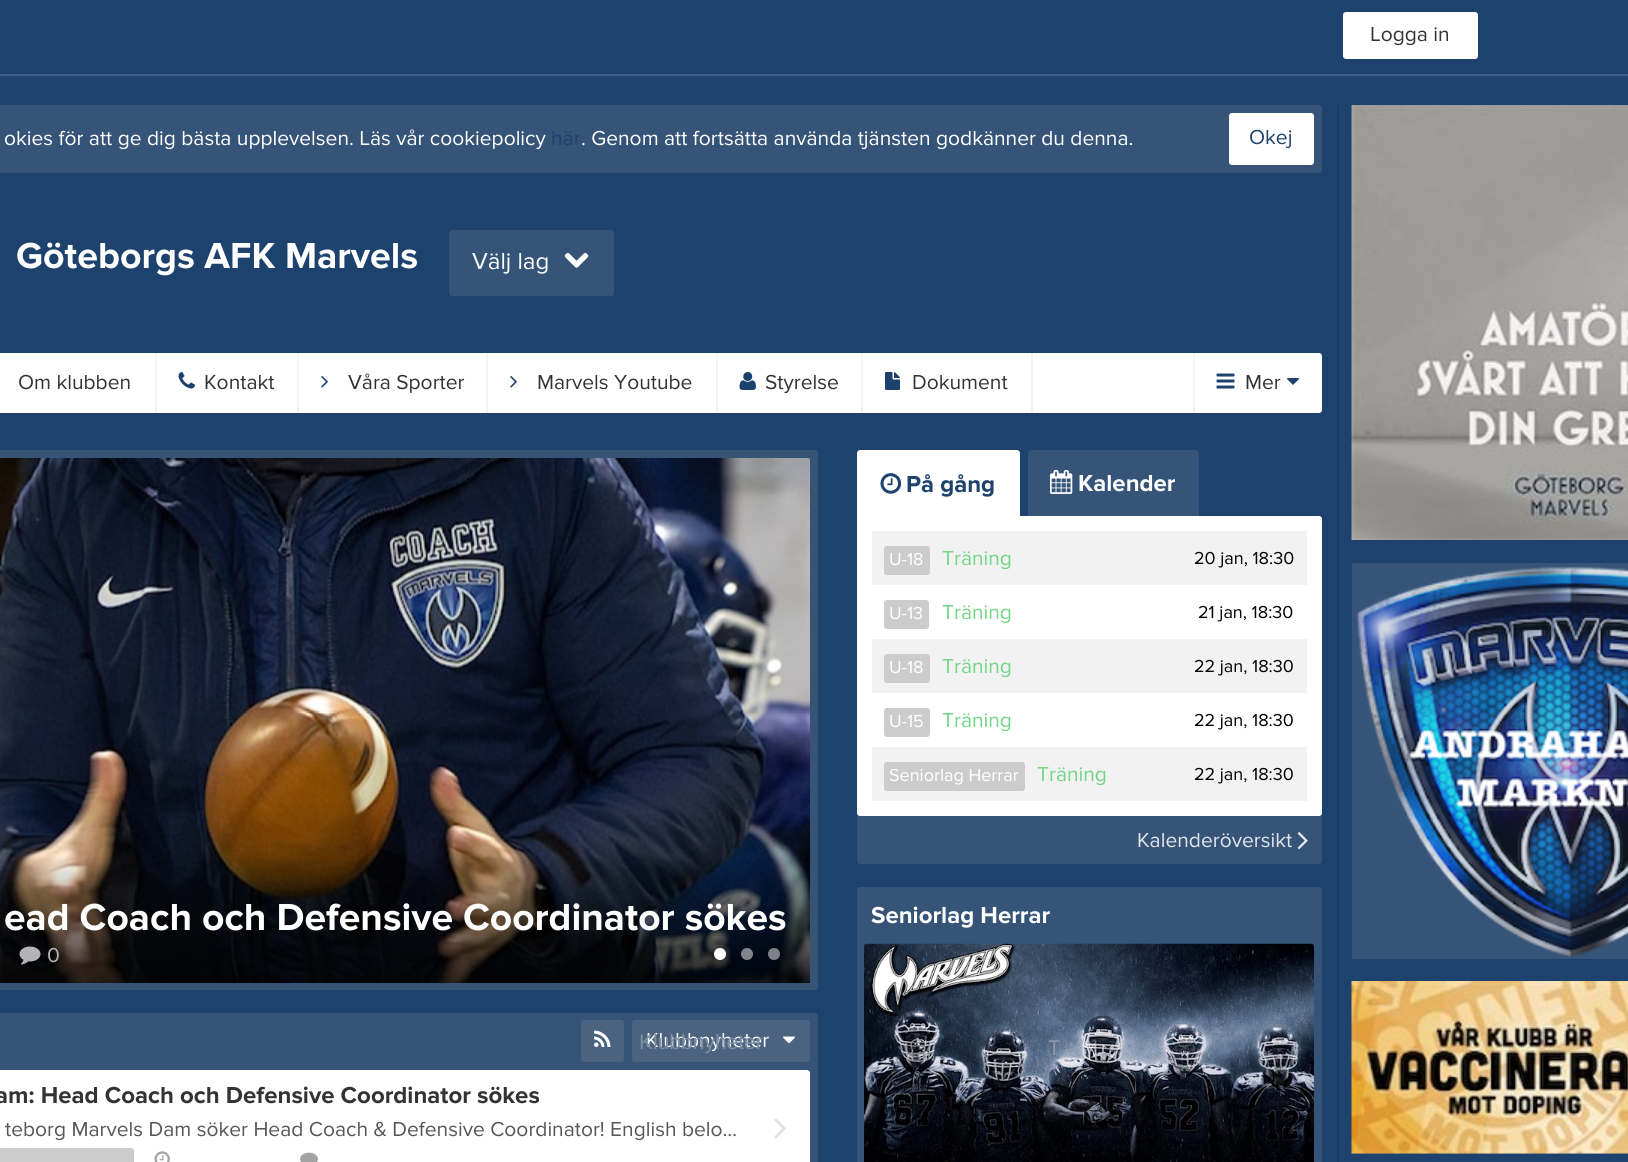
import math
import cairo


def round_path(ctx, x, y, w, h, r):
	ctx.new_sub_path()
	for i, (u, v) in enumerate([(x + w - r, y + h - r), (x + r, y + h - r), (x + r, y + r), (x + w - r, y + r)]):
		ctx.arc(u, v, r, i * math.pi / 2, (i + 1) * math.pi / 2)
	ctx.close_path()

def paste(ctx, path, x, y, w, h):
	ctx.save()
	ctx.set_source_surface(cairo.ImageSurface.create_from_png(path), x, y)
	ctx.rectangle(x, y, w, h)
	ctx.fill()
	ctx.restore()

def draw(ctx):
	ctx.set_source_rgb(0.11, 0.259, 0.427)
	ctx.paint()
	ctx.set_source_rgb(0.243, 0.369, 0.514)
	ctx.rectangle(0, 74, 1628, 2)
	ctx.fill()
	ctx.set_source_rgb(1, 1, 1)
	round_path(ctx, 1343, 12, 135, 47, 3)
	ctx.fill()
	ctx.select_font_face('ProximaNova')
	ctx.set_font_size(21)
	ctx.set_source_rgb(0.2, 0.2, 0.2)
	ctx.move_to(1370, 41)
	ctx.show_text('Logga in')
	ctx.set_source_rgb(0.212, 0.329, 0.467)
	round_path(ctx, -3, 105, 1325, 68, 3)
	ctx.fill()
	ctx.set_source_rgb(1, 1, 1)
	ctx.move_to(4, 145)
	ctx.show_text('okies för att ge dig bästa upplevelsen. Läs vår cookiepolicy')
	ctx.set_source_rgb(0.11, 0.259, 0.427)
	ctx.move_to(551, 145)
	ctx.show_text('här')
	ctx.set_source_rgb(1, 1, 1)
	ctx.move_to(581, 145)
	ctx.show_text('. Genom att fortsätta använda tjänsten godkänner du denna.')
	round_path(ctx, 1229, 113, 85, 52, 3)
	ctx.fill()
	ctx.set_source_rgb(0.11, 0.259, 0.427)
	ctx.move_to(1249, 144)
	ctx.show_text('Okej')
	ctx.select_font_face('ProximaNova', cairo.FONT_SLANT_NORMAL, cairo.FONT_WEIGHT_BOLD)
	ctx.set_font_size(37.5)
	ctx.set_source_rgb(1, 1, 1)
	ctx.move_to(16, 268)
	ctx.show_text('Göteborgs AFK Marvels')
	ctx.set_source_rgb(0.212, 0.329, 0.467)
	round_path(ctx, 449, 230, 165, 66, 3)
	ctx.fill()
	ctx.select_font_face('ProximaNova')
	ctx.set_font_size(24)
	ctx.set_source_rgb(1, 1, 1)
	ctx.move_to(472, 269)
	ctx.show_text('Välj lag')
	paste(ctx, 'media/1.png', 564, 252, 25, 16)
	round_path(ctx, -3, 353, 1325, 60, 3)
	ctx.fill()
	ctx.set_source_rgb(0.953, 0.953, 0.953)
	ctx.rectangle(155, 353, 2, 60)
	ctx.fill()
	ctx.set_font_size(21)
	ctx.set_source_rgb(0.2, 0.2, 0.2)
	ctx.move_to(18, 389)
	ctx.show_text('Om klubben')
	ctx.set_source_rgb(0.953, 0.953, 0.953)
	ctx.rectangle(297, 353, 2, 60)
	ctx.fill()
	paste(ctx, 'media/2.png', 178, 372, 17, 17)
	ctx.set_source_rgb(0.2, 0.2, 0.2)
	ctx.move_to(204, 389)
	ctx.show_text('Kontakt')
	ctx.set_source_rgb(0.953, 0.953, 0.953)
	ctx.rectangle(486, 353, 2, 60)
	ctx.fill()
	paste(ctx, 'media/3.png', 321, 376, 7, 12)
	ctx.set_source_rgb(0.2, 0.2, 0.2)
	ctx.move_to(348, 389)
	ctx.show_text('Våra Sporter')
	ctx.set_source_rgb(0.953, 0.953, 0.953)
	ctx.rectangle(716, 353, 2, 60)
	ctx.fill()
	paste(ctx, 'media/3.png', 510, 376, 7, 12)
	ctx.set_source_rgb(0.2, 0.2, 0.2)
	ctx.move_to(537, 389)
	ctx.show_text('Marvels Youtube')
	ctx.set_source_rgb(0.953, 0.953, 0.953)
	ctx.rectangle(861, 353, 2, 60)
	ctx.fill()
	paste(ctx, 'media/4.png', 739, 372, 17, 18)
	ctx.set_source_rgb(0.2, 0.2, 0.2)
	ctx.move_to(765, 389)
	ctx.show_text('Styrelse')
	ctx.set_source_rgb(0.953, 0.953, 0.953)
	ctx.rectangle(1031, 353, 2, 60)
	ctx.fill()
	paste(ctx, 'media/5.png', 885, 372, 15, 18)
	ctx.set_source_rgb(0.2, 0.2, 0.2)
	ctx.move_to(912, 389)
	ctx.show_text('Dokument')
	ctx.set_source_rgb(0.953, 0.953, 0.953)
	ctx.rectangle(1193, 353, 2, 60)
	ctx.fill()
	paste(ctx, 'media/6.png', 1216, 373, 19, 16)
	ctx.set_source_rgb(0.2, 0.2, 0.2)
	ctx.move_to(1245, 389)
	ctx.show_text('Mer')
	paste(ctx, 'media/7.png', 1287, 378, 12, 7)
	ctx.set_source_rgb(0.212, 0.329, 0.463)
	round_path(ctx, -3, 450, 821, 540, 3)
	ctx.fill()
	ctx.set_source_rgb(0.11, 0.259, 0.427)
	ctx.new_path()
	ctx.move_to(0, 458)
	ctx.line_to(807, 458)
	ctx.curve_to(808.5, 458, 810, 459.5, 810, 461)
	ctx.line_to(810, 983)
	ctx.line_to(-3, 983)
	ctx.line_to(-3, 461)
	ctx.curve_to(-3, 459.5, -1.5, 458, 0, 458)
	ctx.close_path()
	ctx.fill()
	paste(ctx, 'media/8.png', 807, 979, 3, 4)
	paste(ctx, 'media/9.png', 0, 458, 810, 525)
	gradient = cairo.LinearGradient(335, 822, 335, 983)
	gradient.add_color_stop_rgba(0.2, 0, 0, 0, 0)
	gradient.add_color_stop_rgba(1, 0, 0, 0, 0.8)
	ctx.set_source(gradient)
	ctx.rectangle(0, 858, 810, 125)
	ctx.fill()
	ctx.select_font_face('ProximaNova', cairo.FONT_SLANT_NORMAL, cairo.FONT_WEIGHT_BOLD)
	ctx.set_font_size(39)
	ctx.set_source_rgb(1, 1, 1)
	ctx.move_to(4, 930)
	ctx.show_text('ead Coach och Defensive Coordinator sökes')
	paste(ctx, 'media/10.png', 19, 946, 22, 19)
	ctx.select_font_face('ProximaNova')
	ctx.set_font_size(21)
	ctx.set_source_rgb(0.722, 0.718, 0.718)
	ctx.move_to(47, 962)
	ctx.show_text('0')
	ctx.set_source_rgb(1, 1, 1)
	ctx.new_path()
	ctx.arc(720, 954, 6, 0, 2 * math.pi)
	ctx.fill()
	ctx.set_source_rgba(1, 1, 1, 0.5)
	ctx.arc(747, 954, 6, 0, 2 * math.pi)
	ctx.fill()
	ctx.arc(774, 954, 6, 0, 2 * math.pi)
	ctx.fill()
	ctx.set_source_rgb(0.212, 0.329, 0.467)
	round_path(ctx, -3, 1013, 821, 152, 3)
	ctx.fill()
	ctx.set_source_rgb(0.294, 0.388, 0.498)
	round_path(ctx, 581, 1020, 43, 42, 3)
	ctx.fill()
	paste(ctx, 'media/11.png', 594, 1030, 17, 17)
	round_path(ctx, 632, 1020, 178, 42, 3)
	ctx.fill()
	ctx.set_source_rgb(1, 1, 1)
	ctx.move_to(646, 1047)
	ctx.show_text('Klubbnyheter')
	ctx.select_font_face('Liberation Sans')
	ctx.set_source_rgb(0.486, 0.557, 0.635)
	ctx.move_to(639, 1049)
	ctx.show_text('Klubbnyheter')
	paste(ctx, 'media/12.png', 783, 1036, 12, 8)
	ctx.set_source_rgb(1, 1, 1)
	round_path(ctx, -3, 1070, 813, 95, 3)
	ctx.fill()
	ctx.select_font_face('ProximaNova', cairo.FONT_SLANT_NORMAL, cairo.FONT_WEIGHT_BOLD)
	ctx.set_font_size(24)
	ctx.set_source_rgb(0.2, 0.2, 0.2)
	ctx.move_to(-5, 1103)
	ctx.show_text('am: Head Coach och Defensive Coordinator sökes')
	ctx.select_font_face('ProximaNova')
	ctx.set_font_size(21)
	ctx.set_source_rgb(0.337, 0.337, 0.337)
	ctx.move_to(5, 1136)
	ctx.show_text('teborg Marvels Dam söker Head Coach & Defensive Coordinator! English belo…')
	paste(ctx, 'media/13.png', 774, 1118, 12, 21)
	ctx.set_source_rgb(0.8, 0.8, 0.8)
	round_path(ctx, -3, 1148, 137, 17, 3)
	ctx.fill()
	paste(ctx, 'media/14.png', 154, 1151, 16, 11)
	paste(ctx, 'media/15.png', 300, 1152, 18, 10)
	ctx.set_source_rgb(1, 1, 1)
	ctx.new_path()
	ctx.move_to(860, 450)
	ctx.line_to(1017, 450)
	ctx.curve_to(1018.5, 450, 1020, 451.5, 1020, 453)
	ctx.line_to(1020, 516)
	ctx.line_to(857, 516)
	ctx.line_to(857, 453)
	ctx.curve_to(857, 451.5, 858.5, 450, 860, 450)
	ctx.close_path()
	ctx.fill()
	paste(ctx, 'media/16.png', 880, 473, 22, 21)
	ctx.select_font_face('ProximaNova', cairo.FONT_SLANT_NORMAL, cairo.FONT_WEIGHT_BOLD)
	ctx.set_font_size(24)
	ctx.set_source_rgb(0.11, 0.259, 0.427)
	ctx.move_to(906, 492)
	ctx.show_text('På gång')
	ctx.set_source_rgb(0.212, 0.329, 0.467)
	round_path(ctx, 857, 516, 465, 348, 3)
	ctx.fill()
	ctx.set_source_rgb(1, 1, 1)
	round_path(ctx, 857, 516, 465, 300, 3)
	ctx.fill()
	ctx.rectangle(857, 516, 3, 3)
	ctx.fill()
	ctx.set_source_rgb(0.212, 0.329, 0.467)
	ctx.new_path()
	ctx.move_to(1031, 450)
	ctx.line_to(1196, 450)
	ctx.curve_to(1197.5, 450, 1199, 451.5, 1199, 453)
	ctx.line_to(1199, 516)
	ctx.line_to(1028, 516)
	ctx.line_to(1028, 453)
	ctx.curve_to(1028, 451.5, 1029.5, 450, 1031, 450)
	ctx.close_path()
	ctx.fill()
	paste(ctx, 'media/17.png', 1050, 469, 23, 25)
	ctx.set_source_rgb(1, 1, 1)
	ctx.move_to(1078, 491)
	ctx.show_text('Kalender')
	ctx.set_source_rgb(0.949, 0.949, 0.949)
	ctx.rectangle(872, 531, 435, 54)
	ctx.fill()
	ctx.set_source_rgb(0.8, 0.8, 0.8)
	round_path(ctx, 884, 546, 46, 29, 3)
	ctx.fill()
	ctx.select_font_face('ProximaNova')
	ctx.set_font_size(18)
	ctx.set_source_rgb(1, 1, 1)
	ctx.move_to(889, 565)
	ctx.show_text('U-18')
	ctx.set_font_size(21)
	ctx.set_source_rgb(0.447, 0.839, 0.529)
	ctx.move_to(942, 565)
	ctx.show_text('Träning')
	ctx.set_font_size(18)
	ctx.set_source_rgb(0, 0, 0)
	ctx.move_to(1194, 564)
	ctx.show_text('20 jan, 18:30')
	ctx.set_source_rgb(0.8, 0.8, 0.8)
	round_path(ctx, 884, 600, 45, 29, 3)
	ctx.fill()
	ctx.set_source_rgb(1, 1, 1)
	ctx.move_to(889, 619)
	ctx.show_text('U-13')
	ctx.set_font_size(21)
	ctx.set_source_rgb(0.447, 0.839, 0.529)
	ctx.move_to(942, 619)
	ctx.show_text('Träning')
	ctx.set_font_size(18)
	ctx.set_source_rgb(0, 0, 0)
	ctx.move_to(1198, 618)
	ctx.show_text('21 jan, 18:30')
	ctx.set_source_rgb(0.949, 0.949, 0.949)
	ctx.rectangle(872, 639, 435, 54)
	ctx.fill()
	ctx.set_source_rgb(0.8, 0.8, 0.8)
	round_path(ctx, 884, 654, 46, 29, 3)
	ctx.fill()
	ctx.set_source_rgb(1, 1, 1)
	ctx.move_to(889, 673)
	ctx.show_text('U-18')
	ctx.set_font_size(21)
	ctx.set_source_rgb(0.447, 0.839, 0.529)
	ctx.move_to(942, 673)
	ctx.show_text('Träning')
	ctx.set_font_size(18)
	ctx.set_source_rgb(0, 0, 0)
	ctx.move_to(1194, 672)
	ctx.show_text('22 jan, 18:30')
	ctx.set_source_rgb(0.8, 0.8, 0.8)
	round_path(ctx, 884, 708, 46, 29, 3)
	ctx.fill()
	ctx.set_source_rgb(1, 1, 1)
	ctx.move_to(889, 727)
	ctx.show_text('U-15')
	ctx.set_font_size(21)
	ctx.set_source_rgb(0.447, 0.839, 0.529)
	ctx.move_to(942, 727)
	ctx.show_text('Träning')
	ctx.set_font_size(18)
	ctx.set_source_rgb(0, 0, 0)
	ctx.move_to(1194, 726)
	ctx.show_text('22 jan, 18:30')
	ctx.set_source_rgb(0.949, 0.949, 0.949)
	ctx.rectangle(872, 747, 435, 54)
	ctx.fill()
	ctx.set_source_rgb(0.8, 0.8, 0.8)
	round_path(ctx, 884, 762, 141, 29, 3)
	ctx.fill()
	ctx.set_source_rgb(1, 1, 1)
	ctx.move_to(889, 781)
	ctx.show_text('Seniorlag Herrar')
	ctx.set_font_size(21)
	ctx.set_source_rgb(0.447, 0.839, 0.529)
	ctx.move_to(1037, 781)
	ctx.show_text('Träning')
	ctx.set_font_size(18)
	ctx.set_source_rgb(0, 0, 0)
	ctx.move_to(1194, 780)
	ctx.show_text('22 jan, 18:30')
	ctx.set_font_size(21)
	ctx.set_source_rgb(0.882, 0.898, 0.922)
	ctx.move_to(1137, 847)
	ctx.show_text('Kalenderöversikt')
	paste(ctx, 'media/18.png', 1297, 832, 11, 18)
	ctx.set_source_rgb(0.212, 0.329, 0.467)
	round_path(ctx, 857, 887, 465, 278, 3)
	ctx.fill()
	ctx.select_font_face('ProximaNova', cairo.FONT_SLANT_NORMAL, cairo.FONT_WEIGHT_BOLD)
	ctx.set_font_size(24)
	ctx.set_source_rgb(1, 1, 1)
	ctx.move_to(871, 923)
	ctx.show_text('Seniorlag Herrar')
	paste(ctx, 'media/19.png', 864, 943, 450, 219)
	ctx.select_font_face('ProximaNova')
	ctx.set_font_size(22)
	ctx.set_source_rgb(0.569, 0.6, 0.659)
	ctx.move_to(1048, 1055)
	ctx.show_text('T')
	ctx.set_source_rgb(0.098, 0.231, 0.384)
	ctx.rectangle(1337, 105, 2, 1057)
	ctx.fill()
	paste(ctx, 'media/20.png', 1351, 105, 277, 435)
	ctx.set_source_rgb(0.212, 0.329, 0.467)
	ctx.rectangle(1352, 563, 276, 396)
	ctx.fill()
	paste(ctx, 'media/21.png', 1356, 566, 272, 392)
	ctx.rectangle(1352, 1153, 276, 1)
	ctx.fill()
	paste(ctx, 'media/22.png', 1351, 981, 277, 173)


surface = cairo.ImageSurface(cairo.FORMAT_RGB24, 1628, 1162)
ctx = cairo.Context(surface)
options = cairo.FontOptions()
options.set_hint_metrics(cairo.HINT_METRICS_OFF)
options.set_hint_style(cairo.HINT_STYLE_NONE)
ctx.set_font_options(options)
ctx.set_miter_limit(4)
draw(ctx)
surface.write_to_png('image.png')
